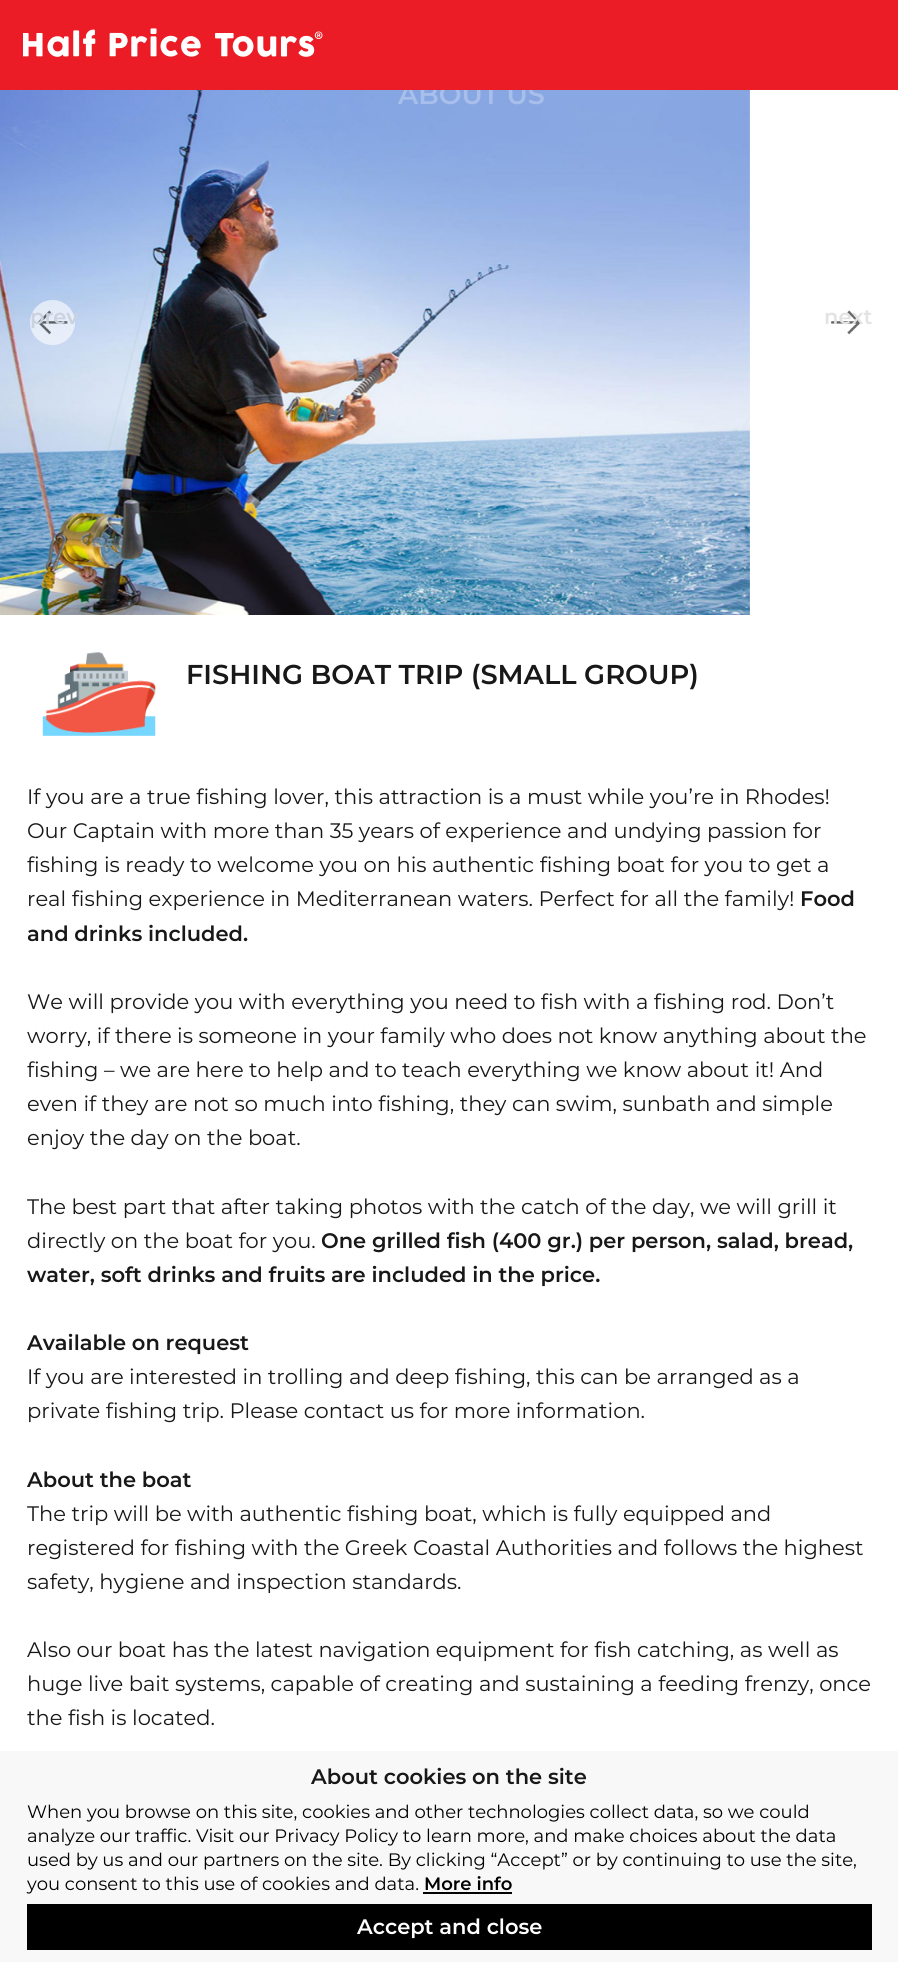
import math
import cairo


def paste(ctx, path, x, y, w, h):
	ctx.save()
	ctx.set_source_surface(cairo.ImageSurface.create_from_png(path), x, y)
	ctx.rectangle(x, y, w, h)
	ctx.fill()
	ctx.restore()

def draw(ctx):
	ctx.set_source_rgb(1, 1, 1)
	ctx.paint()
	paste(ctx, 'media/2.png', 0, 90, 750, 525)
	ctx.select_font_face('Montserrat SemiBold')
	ctx.set_font_size(27)
	ctx.set_source_rgb(0.663, 0.749, 0.918)
	ctx.move_to(398, 104)
	ctx.show_text('ABOUT US')
	ctx.set_source_rgb(0.918, 0.11, 0.145)
	ctx.rectangle(0, 0, 898, 90)
	ctx.fill()
	paste(ctx, 'media/1.png', 23, 28, 300, 29)
	ctx.set_source_rgba(1, 1, 1, 0.6)
	ctx.arc(52.5, 322.5, 22.5, 0, 2 * math.pi)
	ctx.fill()
	paste(ctx, 'media/3.png', 37, 310, 31, 25)
	ctx.set_font_size(21)
	ctx.set_source_rgb(0.792, 0.824, 0.871)
	ctx.move_to(30, 324)
	ctx.show_text('prev')
	paste(ctx, 'media/4.png', 831, 310, 30, 25)
	ctx.set_source_rgb(0.89, 0.89, 0.89)
	ctx.move_to(824, 324)
	ctx.show_text('next')
	paste(ctx, 'media/5.png', 42, 652, 114, 84)
	ctx.set_font_size(27.25)
	ctx.set_source_rgb(0.094, 0.094, 0.094)
	ctx.move_to(186, 684)
	ctx.show_text('FISHING BOAT TRIP (SMALL GROUP)')
	ctx.select_font_face('Montserrat')
	ctx.set_font_size(21)
	for x, y, s in [
		(27, 804, 'If you are a true fishing lover, this attraction is a must while you’re in Rhodes!'),
		(27, 838, 'Our Captain with more than 35 years of experience and undying passion for'),
		(27, 872, 'fishing is ready to welcome you on his authentic fishing boat for you to get a'),
		(27, 906, 'real fishing experience in Mediterranean waters. Perfect for all the family!'),
	]:
		ctx.move_to(x, y)
		ctx.show_text(s)
	ctx.select_font_face('Montserrat SemiBold')
	ctx.move_to(800, 906)
	ctx.show_text('Food')
	ctx.move_to(27, 941)
	ctx.show_text('and drinks included.')
	ctx.select_font_face('Montserrat')
	for x, y, s in [
		(27, 1009, 'We will provide you with everything you need to fish with a fishing rod. Don’t'),
		(27, 1043, 'worry, if there is someone in your family who does not know anything about the'),
		(27, 1077, 'fishing – we are here to help and to teach everything we know about it! And'),
		(27, 1111, 'even if they are not so much into fishing, they can swim, sunbath and simple'),
		(27, 1145, 'enjoy the day on the boat.'),
		(27, 1214, 'The best part that after taking photos with the catch of the day, we will grill it'),
		(27, 1248, 'directly on the boat for you.'),
	]:
		ctx.move_to(x, y)
		ctx.show_text(s)
	ctx.select_font_face('Montserrat SemiBold')
	for x, y, s in [
		(321, 1248, 'One grilled fish (400 gr.) per person, salad, bread,'),
		(27, 1282, 'water, soft drinks and fruits are included in the price.'),
		(27, 1350, 'Available on request'),
	]:
		ctx.move_to(x, y)
		ctx.show_text(s)
	ctx.select_font_face('Montserrat')
	ctx.move_to(27, 1384)
	ctx.show_text('If you are interested in trolling and deep fishing, this can be arranged as a')
	ctx.move_to(27, 1418)
	ctx.show_text('private fishing trip. Please contact us for more information.')
	ctx.select_font_face('Montserrat SemiBold')
	ctx.move_to(27, 1487)
	ctx.show_text('About the boat')
	ctx.select_font_face('Montserrat')
	for x, y, s in [
		(27, 1521, 'The trip will be with authentic fishing boat, which is fully equipped and'),
		(27, 1555, 'registered for fishing with the Greek Coastal Authorities and follows the highest'),
		(27, 1589, 'safety, hygiene and inspection standards.'),
		(27, 1657, 'Also our boat has the latest navigation equipment for fish catching, as well as'),
		(27, 1691, 'huge live bait systems, capable of creating and sustaining a feeding frenzy, once'),
		(27, 1725, 'the fish is located.'),
	]:
		ctx.move_to(x, y)
		ctx.show_text(s)
	ctx.set_source_rgb(0.969, 0.969, 0.969)
	ctx.rectangle(0, 1751, 898, 211)
	ctx.fill()
	ctx.select_font_face('Montserrat SemiBold')
	ctx.set_source_rgb(0.094, 0.094, 0.094)
	ctx.move_to(311, 1784)
	ctx.show_text('About cookies on the site')
	ctx.select_font_face('Montserrat')
	ctx.set_font_size(18)
	ctx.set_source_rgb(0, 0, 0)
	for x, y, s in [
		(27, 1818, 'When you browse on this site, cookies and other technologies collect data, so we could'),
		(27, 1842, 'analyze our traffic. Visit our Privacy Policy to learn more, and make choices about the data'),
		(27, 1866, 'used by us and our partners on the site. By clicking “Accept” or by continuing to use the site,'),
		(27, 1890, 'you consent to this use of cookies and data.'),
	]:
		ctx.move_to(x, y)
		ctx.show_text(s)
	ctx.select_font_face('Montserrat SemiBold')
	ctx.move_to(424, 1890)
	ctx.show_text('More info')
	ctx.rectangle(423, 1892, 89, 2)
	ctx.fill()
	ctx.rectangle(27, 1904, 845, 46)
	ctx.fill()
	ctx.set_font_size(21)
	ctx.set_source_rgb(1, 1, 1)
	ctx.move_to(357, 1934)
	ctx.show_text('Accept and close')


surface = cairo.ImageSurface(cairo.FORMAT_RGB24, 898, 1962)
ctx = cairo.Context(surface)
options = cairo.FontOptions()
options.set_hint_metrics(cairo.HINT_METRICS_OFF)
options.set_hint_style(cairo.HINT_STYLE_NONE)
ctx.set_font_options(options)
ctx.set_miter_limit(4)
draw(ctx)
surface.write_to_png('image.png')
